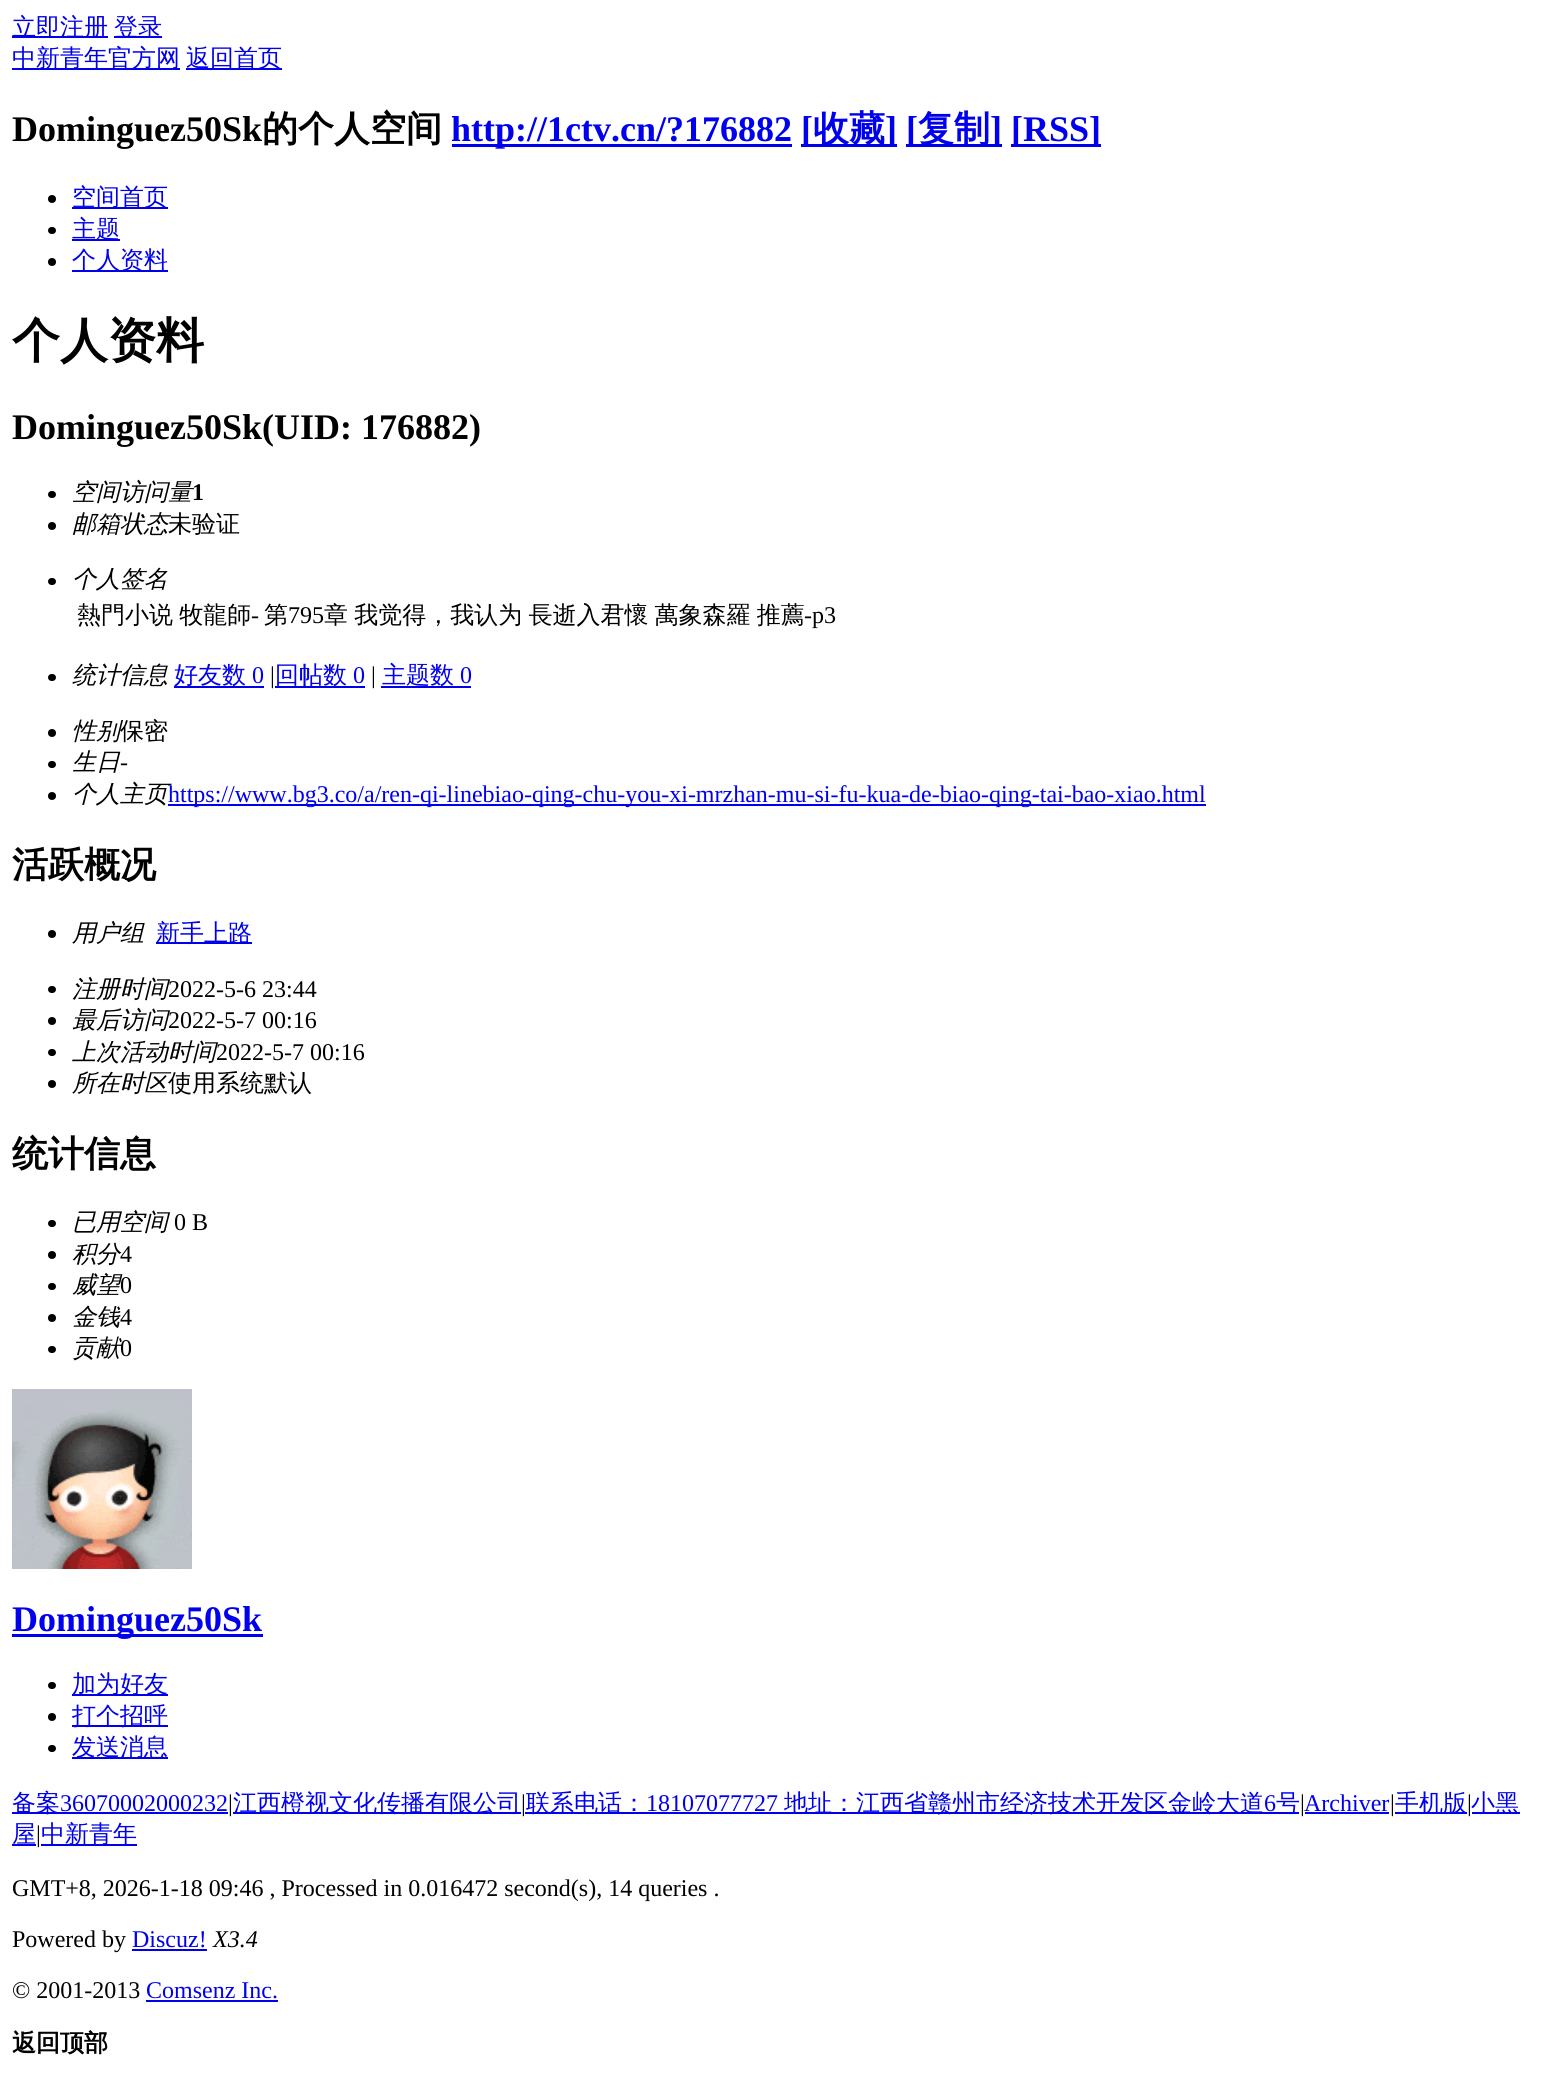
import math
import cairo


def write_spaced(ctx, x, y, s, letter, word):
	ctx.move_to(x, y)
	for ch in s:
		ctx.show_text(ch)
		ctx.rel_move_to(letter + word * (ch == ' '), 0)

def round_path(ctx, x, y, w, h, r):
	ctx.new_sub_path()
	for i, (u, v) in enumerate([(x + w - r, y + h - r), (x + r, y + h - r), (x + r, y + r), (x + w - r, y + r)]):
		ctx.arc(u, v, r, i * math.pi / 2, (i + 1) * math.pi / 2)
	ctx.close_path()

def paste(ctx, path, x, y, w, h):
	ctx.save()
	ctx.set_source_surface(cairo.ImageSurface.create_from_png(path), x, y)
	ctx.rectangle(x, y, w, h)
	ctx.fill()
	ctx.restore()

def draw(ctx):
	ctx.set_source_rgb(1, 1, 1)
	ctx.paint()
	ctx.set_source_rgb(0, 0, 0.933)
	ctx.rectangle(12, 36, 96, 2)
	ctx.fill()
	ctx.select_font_face('WenQuanYi Zen Hei Medium')
	ctx.set_font_size(24)
	ctx.move_to(12, 35)
	ctx.show_text('立即注册')
	ctx.rectangle(114, 36, 48, 2)
	ctx.fill()
	ctx.move_to(114, 35)
	ctx.show_text('登录')
	ctx.rectangle(12, 68, 168, 2)
	ctx.fill()
	ctx.move_to(12, 66)
	ctx.show_text('中新青年官方网')
	ctx.rectangle(186, 68, 96, 2)
	ctx.fill()
	ctx.move_to(186, 66)
	ctx.show_text('返回首页')
	ctx.select_font_face('Liberation Serif', cairo.FONT_SLANT_NORMAL, cairo.FONT_WEIGHT_BOLD)
	ctx.set_font_size(36)
	ctx.set_source_rgb(0, 0, 0)
	ctx.move_to(12, 141)
	ctx.show_text('Dominguez50Sk')
	ctx.select_font_face('WenQuanYi Zen Hei', cairo.FONT_SLANT_NORMAL, cairo.FONT_WEIGHT_BOLD)
	ctx.move_to(262, 141)
	ctx.show_text('的个人空间')
	ctx.set_source_rgb(0, 0, 0.933)
	ctx.rectangle(452, 144, 340, 3)
	ctx.fill()
	ctx.select_font_face('Liberation Serif', cairo.FONT_SLANT_NORMAL, cairo.FONT_WEIGHT_BOLD)
	ctx.move_to(451, 141)
	ctx.show_text('http://1ctv.cn/?176882')
	ctx.rectangle(801, 144, 96, 3)
	ctx.fill()
	ctx.move_to(801, 141)
	ctx.show_text('[')
	ctx.select_font_face('WenQuanYi Zen Hei', cairo.FONT_SLANT_NORMAL, cairo.FONT_WEIGHT_BOLD)
	ctx.move_to(813, 141)
	ctx.show_text('收藏')
	ctx.select_font_face('Liberation Serif', cairo.FONT_SLANT_NORMAL, cairo.FONT_WEIGHT_BOLD)
	ctx.move_to(885, 141)
	ctx.show_text(']')
	ctx.rectangle(906, 144, 96, 3)
	ctx.fill()
	ctx.move_to(906, 141)
	ctx.show_text('[')
	ctx.select_font_face('WenQuanYi Zen Hei', cairo.FONT_SLANT_NORMAL, cairo.FONT_WEIGHT_BOLD)
	ctx.move_to(918, 141)
	ctx.show_text('复制')
	ctx.select_font_face('Liberation Serif', cairo.FONT_SLANT_NORMAL, cairo.FONT_WEIGHT_BOLD)
	ctx.move_to(990, 141)
	ctx.show_text(']')
	ctx.rectangle(1011, 144, 90, 3)
	ctx.fill()
	ctx.move_to(1011, 141)
	ctx.show_text('[RSS]')
	ctx.set_source_rgb(0, 0, 0)
	ctx.new_path()
	ctx.arc(52, 199, 4, 0, 2 * math.pi)
	ctx.fill()
	ctx.set_source_rgb(0, 0, 0.933)
	ctx.rectangle(72, 207, 96, 2)
	ctx.fill()
	ctx.select_font_face('WenQuanYi Zen Hei Medium')
	ctx.set_font_size(24)
	ctx.move_to(72, 205)
	ctx.show_text('空间首页')
	ctx.set_source_rgb(0, 0, 0)
	round_path(ctx, 48, 227, 8, 7, 3.5)
	ctx.fill()
	ctx.set_source_rgb(0, 0, 0.933)
	ctx.rectangle(72, 239, 48, 2)
	ctx.fill()
	ctx.move_to(72, 237)
	ctx.show_text('主题')
	ctx.set_source_rgb(0, 0, 0)
	ctx.new_path()
	ctx.arc(52, 262, 4, 0, 2 * math.pi)
	ctx.fill()
	ctx.set_source_rgb(0, 0, 0.933)
	ctx.rectangle(72, 270, 96, 2)
	ctx.fill()
	ctx.move_to(72, 268)
	ctx.show_text('个人资料')
	ctx.select_font_face('WenQuanYi Zen Hei', cairo.FONT_SLANT_NORMAL, cairo.FONT_WEIGHT_BOLD)
	ctx.set_font_size(48)
	ctx.set_source_rgb(0, 0, 0)
	ctx.move_to(12, 357)
	ctx.show_text('个人资料')
	ctx.select_font_face('Liberation Serif', cairo.FONT_SLANT_NORMAL, cairo.FONT_WEIGHT_BOLD)
	ctx.set_font_size(36)
	ctx.move_to(12, 439)
	ctx.show_text('Dominguez50Sk(UID: 176882)')
	round_path(ctx, 48, 491, 8, 7, 3.5)
	ctx.fill()
	ctx.select_font_face('WenQuanYi Zen Hei Medium', cairo.FONT_SLANT_ITALIC)
	ctx.set_font_size(24)
	ctx.move_to(72, 500)
	ctx.show_text('空间访问量')
	ctx.select_font_face('Liberation Serif', cairo.FONT_SLANT_NORMAL, cairo.FONT_WEIGHT_BOLD)
	ctx.move_to(192, 500)
	ctx.show_text('1')
	ctx.new_path()
	ctx.arc(52, 526, 4, 0, 2 * math.pi)
	ctx.fill()
	ctx.select_font_face('WenQuanYi Zen Hei Medium', cairo.FONT_SLANT_ITALIC)
	ctx.move_to(72, 532)
	ctx.show_text('邮箱状态')
	ctx.select_font_face('WenQuanYi Zen Hei Medium')
	ctx.move_to(168, 532)
	ctx.show_text('未验证')
	round_path(ctx, 48, 578, 8, 7, 3.5)
	ctx.fill()
	ctx.select_font_face('WenQuanYi Zen Hei Medium', cairo.FONT_SLANT_ITALIC)
	ctx.move_to(72, 587)
	ctx.show_text('个人签名')
	ctx.select_font_face('WenQuanYi Zen Hei Medium')
	write_spaced(ctx, 77, 623, '熱門小说 牧龍師', 0, -1)
	ctx.select_font_face('Liberation Serif')
	ctx.move_to(251, 623)
	ctx.show_text('-')
	ctx.select_font_face('WenQuanYi Zen Hei Medium')
	ctx.move_to(264, 623)
	ctx.show_text('第')
	ctx.select_font_face('Liberation Serif')
	ctx.move_to(288, 623)
	ctx.show_text('795')
	ctx.select_font_face('WenQuanYi Zen Hei Medium')
	write_spaced(ctx, 324, 623, '章 我觉得，我认为 長逝入君懷 萬象森羅 推薦', 0, -1)
	ctx.select_font_face('Liberation Serif')
	ctx.move_to(804, 623)
	ctx.show_text('-p3')
	round_path(ctx, 48, 674, 8, 7, 3.5)
	ctx.fill()
	ctx.select_font_face('WenQuanYi Zen Hei Medium', cairo.FONT_SLANT_ITALIC)
	ctx.move_to(72, 683)
	ctx.show_text('统计信息')
	ctx.set_source_rgb(0, 0, 0.933)
	ctx.rectangle(174, 686, 90, 2)
	ctx.fill()
	ctx.select_font_face('WenQuanYi Zen Hei Medium')
	ctx.move_to(174, 683)
	ctx.show_text('好友数')
	ctx.select_font_face('Liberation Serif')
	ctx.move_to(252, 683)
	ctx.show_text('0')
	ctx.set_source_rgb(0, 0, 0)
	ctx.move_to(270, 683)
	ctx.show_text('|')
	ctx.set_source_rgb(0, 0, 0.933)
	ctx.rectangle(275, 686, 90, 2)
	ctx.fill()
	ctx.select_font_face('WenQuanYi Zen Hei Medium')
	ctx.move_to(275, 683)
	ctx.show_text('回帖数')
	ctx.select_font_face('Liberation Serif')
	ctx.move_to(353, 683)
	ctx.show_text('0')
	ctx.set_source_rgb(0, 0, 0)
	ctx.move_to(371, 683)
	ctx.show_text('|')
	ctx.set_source_rgb(0, 0, 0.933)
	ctx.rectangle(381, 686, 90, 2)
	ctx.fill()
	ctx.select_font_face('WenQuanYi Zen Hei Medium')
	ctx.move_to(382, 683)
	ctx.show_text('主题数')
	ctx.select_font_face('Liberation Serif')
	ctx.move_to(460, 683)
	ctx.show_text('0')
	ctx.set_source_rgb(0, 0, 0)
	ctx.new_path()
	ctx.arc(52, 733, 4, 0, 2 * math.pi)
	ctx.fill()
	ctx.select_font_face('WenQuanYi Zen Hei Medium', cairo.FONT_SLANT_ITALIC)
	ctx.move_to(72, 739)
	ctx.show_text('性别')
	ctx.select_font_face('WenQuanYi Zen Hei Medium')
	ctx.move_to(120, 739)
	ctx.show_text('保密')
	round_path(ctx, 48, 761, 8, 7, 3.5)
	ctx.fill()
	ctx.select_font_face('WenQuanYi Zen Hei Medium', cairo.FONT_SLANT_ITALIC)
	ctx.move_to(72, 770)
	ctx.show_text('生日')
	ctx.select_font_face('Liberation Serif')
	ctx.move_to(120, 770)
	ctx.show_text('-')
	ctx.new_path()
	ctx.arc(52, 796, 4, 0, 2 * math.pi)
	ctx.fill()
	ctx.select_font_face('WenQuanYi Zen Hei Medium', cairo.FONT_SLANT_ITALIC)
	ctx.move_to(72, 802)
	ctx.show_text('个人主页')
	ctx.set_source_rgb(0, 0, 0.933)
	ctx.rectangle(168, 804, 1038, 2)
	ctx.fill()
	ctx.select_font_face('Liberation Serif')
	ctx.move_to(168, 802)
	ctx.show_text('https://www.bg3.co/a/ren-qi-linebiao-qing-chu-you-xi-mrzhan-mu-si-fu-kua-de-biao-qing-tai-bao-xiao.html')
	ctx.select_font_face('WenQuanYi Zen Hei', cairo.FONT_SLANT_NORMAL, cairo.FONT_WEIGHT_BOLD)
	ctx.set_font_size(36)
	ctx.set_source_rgb(0, 0, 0)
	ctx.move_to(12, 877)
	ctx.show_text('活跃概况')
	ctx.new_path()
	ctx.arc(52, 934, 4, 0, 2 * math.pi)
	ctx.fill()
	ctx.select_font_face('WenQuanYi Zen Hei Medium', cairo.FONT_SLANT_ITALIC)
	ctx.set_font_size(24)
	ctx.move_to(72, 941)
	ctx.show_text('用户组')
	ctx.set_source_rgb(0, 0, 0.933)
	ctx.rectangle(156, 942, 96, 2)
	ctx.fill()
	ctx.select_font_face('WenQuanYi Zen Hei Medium')
	ctx.move_to(156, 941)
	ctx.show_text('新手上路')
	ctx.set_source_rgb(0, 0, 0)
	round_path(ctx, 48, 986, 8, 7, 3.5)
	ctx.fill()
	ctx.select_font_face('WenQuanYi Zen Hei Medium', cairo.FONT_SLANT_ITALIC)
	ctx.move_to(72, 997)
	ctx.show_text('注册时间')
	ctx.select_font_face('Liberation Serif')
	ctx.move_to(168, 997)
	ctx.show_text('2022-5-6 23:44')
	ctx.new_path()
	ctx.arc(52, 1021, 4, 0, 2 * math.pi)
	ctx.fill()
	ctx.select_font_face('WenQuanYi Zen Hei Medium', cairo.FONT_SLANT_ITALIC)
	ctx.move_to(72, 1028)
	ctx.show_text('最后访问')
	ctx.select_font_face('Liberation Serif')
	ctx.move_to(168, 1028)
	ctx.show_text('2022-5-7 00:16')
	round_path(ctx, 48, 1049, 8, 7, 3.5)
	ctx.fill()
	ctx.select_font_face('WenQuanYi Zen Hei Medium', cairo.FONT_SLANT_ITALIC)
	ctx.move_to(72, 1060)
	ctx.show_text('上次活动时间')
	ctx.select_font_face('Liberation Serif')
	ctx.move_to(216, 1060)
	ctx.show_text('2022-5-7 00:16')
	ctx.new_path()
	ctx.arc(52, 1084, 4, 0, 2 * math.pi)
	ctx.fill()
	ctx.select_font_face('WenQuanYi Zen Hei Medium', cairo.FONT_SLANT_ITALIC)
	ctx.move_to(72, 1091)
	ctx.show_text('所在时区')
	ctx.select_font_face('WenQuanYi Zen Hei Medium')
	ctx.move_to(168, 1091)
	ctx.show_text('使用系统默认')
	ctx.select_font_face('WenQuanYi Zen Hei', cairo.FONT_SLANT_NORMAL, cairo.FONT_WEIGHT_BOLD)
	ctx.set_font_size(36)
	ctx.move_to(12, 1166)
	ctx.show_text('统计信息')
	round_path(ctx, 48, 1220, 8, 7, 3.5)
	ctx.fill()
	ctx.select_font_face('WenQuanYi Zen Hei Medium', cairo.FONT_SLANT_ITALIC)
	ctx.set_font_size(24)
	ctx.move_to(72, 1230)
	ctx.show_text('已用空间')
	ctx.select_font_face('Liberation Serif')
	ctx.move_to(174, 1230)
	ctx.show_text('0 B')
	ctx.new_path()
	ctx.arc(52, 1255, 4, 0, 2 * math.pi)
	ctx.fill()
	ctx.select_font_face('WenQuanYi Zen Hei Medium', cairo.FONT_SLANT_ITALIC)
	ctx.move_to(72, 1262)
	ctx.show_text('积分')
	ctx.select_font_face('Liberation Serif')
	ctx.move_to(120, 1262)
	ctx.show_text('4')
	round_path(ctx, 48, 1283, 8, 7, 3.5)
	ctx.fill()
	ctx.select_font_face('WenQuanYi Zen Hei Medium', cairo.FONT_SLANT_ITALIC)
	ctx.move_to(72, 1293)
	ctx.show_text('威望')
	ctx.select_font_face('Liberation Serif')
	ctx.move_to(120, 1293)
	ctx.show_text('0')
	ctx.new_path()
	ctx.arc(52, 1318, 4, 0, 2 * math.pi)
	ctx.fill()
	ctx.select_font_face('WenQuanYi Zen Hei Medium', cairo.FONT_SLANT_ITALIC)
	ctx.move_to(72, 1325)
	ctx.show_text('金钱')
	ctx.select_font_face('Liberation Serif')
	ctx.move_to(120, 1325)
	ctx.show_text('4')
	round_path(ctx, 48, 1346, 8, 7, 3.5)
	ctx.fill()
	ctx.select_font_face('WenQuanYi Zen Hei Medium', cairo.FONT_SLANT_ITALIC)
	ctx.move_to(72, 1356)
	ctx.show_text('贡献')
	ctx.select_font_face('Liberation Serif')
	ctx.move_to(120, 1356)
	ctx.show_text('0')
	paste(ctx, 'media/1.png', 12, 1389, 180, 180)
	ctx.set_source_rgb(0, 0, 0.933)
	ctx.rectangle(12, 1634, 251, 3)
	ctx.fill()
	ctx.select_font_face('Liberation Serif', cairo.FONT_SLANT_NORMAL, cairo.FONT_WEIGHT_BOLD)
	ctx.set_font_size(36)
	ctx.move_to(12, 1631)
	ctx.show_text('Dominguez50Sk')
	ctx.set_source_rgb(0, 0, 0)
	round_path(ctx, 48, 1682, 8, 7, 3.5)
	ctx.fill()
	ctx.set_source_rgb(0, 0, 0.933)
	ctx.rectangle(72, 1694, 96, 2)
	ctx.fill()
	ctx.select_font_face('WenQuanYi Zen Hei Medium')
	ctx.set_font_size(24)
	ctx.move_to(72, 1692)
	ctx.show_text('加为好友')
	ctx.set_source_rgb(0, 0, 0)
	ctx.new_path()
	ctx.arc(52, 1717, 4, 0, 2 * math.pi)
	ctx.fill()
	ctx.set_source_rgb(0, 0, 0.933)
	ctx.rectangle(72, 1725, 96, 2)
	ctx.fill()
	ctx.move_to(72, 1724)
	ctx.show_text('打个招呼')
	ctx.set_source_rgb(0, 0, 0)
	round_path(ctx, 48, 1745, 8, 7, 3.5)
	ctx.fill()
	ctx.set_source_rgb(0, 0, 0.933)
	ctx.rectangle(72, 1757, 96, 2)
	ctx.fill()
	ctx.move_to(72, 1755)
	ctx.show_text('发送消息')
	ctx.rectangle(12, 1812, 216, 2)
	ctx.fill()
	ctx.move_to(12, 1811)
	ctx.show_text('备案')
	ctx.select_font_face('Liberation Serif')
	ctx.move_to(60, 1811)
	ctx.show_text('36070002000232')
	ctx.set_source_rgb(0, 0, 0)
	ctx.move_to(228, 1811)
	ctx.show_text('|')
	ctx.set_source_rgb(0, 0, 0.933)
	ctx.rectangle(233, 1812, 288, 2)
	ctx.fill()
	ctx.select_font_face('WenQuanYi Zen Hei Medium')
	ctx.move_to(233, 1811)
	ctx.show_text('江西橙视文化传播有限公司')
	ctx.select_font_face('Liberation Serif')
	ctx.set_source_rgb(0, 0, 0)
	ctx.move_to(521, 1811)
	ctx.show_text('|')
	ctx.set_source_rgb(0, 0, 0.933)
	ctx.rectangle(525, 1812, 774, 2)
	ctx.fill()
	ctx.select_font_face('WenQuanYi Zen Hei Medium')
	ctx.move_to(526, 1811)
	ctx.show_text('联系电话：')
	ctx.select_font_face('Liberation Serif')
	ctx.move_to(646, 1811)
	ctx.show_text('18107077727')
	ctx.select_font_face('WenQuanYi Zen Hei Medium')
	ctx.move_to(784, 1811)
	ctx.show_text('地址：江西省赣州市经济技术开发区金岭大道')
	ctx.select_font_face('Liberation Serif')
	ctx.move_to(1264, 1811)
	ctx.show_text('6')
	ctx.select_font_face('WenQuanYi Zen Hei Medium')
	ctx.move_to(1276, 1811)
	ctx.show_text('号')
	ctx.select_font_face('Liberation Serif')
	ctx.set_source_rgb(0, 0, 0)
	ctx.move_to(1300, 1811)
	ctx.show_text('|')
	ctx.set_source_rgb(0, 0, 0.933)
	ctx.move_to(1304, 1811)
	ctx.show_text('Archiver')
	ctx.rectangle(1305, 1812, 84, 2)
	ctx.fill()
	ctx.set_source_rgb(0, 0, 0)
	ctx.move_to(1390, 1811)
	ctx.show_text('|')
	ctx.set_source_rgb(0, 0, 0.933)
	ctx.rectangle(1395, 1812, 72, 2)
	ctx.fill()
	ctx.select_font_face('WenQuanYi Zen Hei Medium')
	ctx.move_to(1395, 1811)
	ctx.show_text('手机版')
	ctx.select_font_face('Liberation Serif')
	ctx.set_source_rgb(0, 0, 0)
	ctx.move_to(1467, 1811)
	ctx.show_text('|')
	ctx.set_source_rgb(0, 0, 0.933)
	ctx.rectangle(1472, 1812, 48, 2)
	ctx.fill()
	ctx.select_font_face('WenQuanYi Zen Hei Medium')
	ctx.move_to(1471, 1811)
	ctx.show_text('小黑')
	ctx.move_to(12, 1842)
	ctx.show_text('屋')
	ctx.rectangle(12, 1844, 24, 2)
	ctx.fill()
	ctx.select_font_face('Liberation Serif')
	ctx.set_source_rgb(0, 0, 0)
	ctx.move_to(36, 1842)
	ctx.show_text('|')
	ctx.set_source_rgb(0, 0, 0.933)
	ctx.rectangle(41, 1844, 96, 2)
	ctx.fill()
	ctx.select_font_face('WenQuanYi Zen Hei Medium')
	ctx.move_to(41, 1842)
	ctx.show_text('中新青年')
	ctx.select_font_face('Liberation Serif')
	ctx.set_source_rgb(0, 0, 0)
	ctx.move_to(12, 1896)
	ctx.show_text('GMT+8, 2026-1-18 09:46 , Processed in 0.016472 second(s), 14 queries .')
	ctx.move_to(12, 1947)
	ctx.show_text('Powered by')
	ctx.set_source_rgb(0, 0, 0.933)
	ctx.move_to(132, 1947)
	ctx.show_text('Discuz!')
	ctx.rectangle(132, 1949, 75, 2)
	ctx.fill()
	ctx.select_font_face('Liberation Serif', cairo.FONT_SLANT_ITALIC)
	ctx.set_source_rgb(0, 0, 0)
	ctx.move_to(213, 1947)
	ctx.show_text('X3.4')
	ctx.select_font_face('Liberation Serif')
	ctx.move_to(12, 1998)
	ctx.show_text('© 2001-2013')
	ctx.set_source_rgb(0, 0, 0.933)
	ctx.move_to(146, 1998)
	ctx.show_text('Comsenz Inc.')
	ctx.rectangle(146, 2000, 132, 2)
	ctx.fill()
	ctx.select_font_face('WenQuanYi Zen Hei', cairo.FONT_SLANT_NORMAL, cairo.FONT_WEIGHT_BOLD)
	ctx.set_source_rgb(0, 0, 0)
	ctx.move_to(12, 2051)
	ctx.show_text('返回顶部')


surface = cairo.ImageSurface(cairo.FORMAT_RGB24, 1560, 2100)
ctx = cairo.Context(surface)
options = cairo.FontOptions()
options.set_hint_metrics(cairo.HINT_METRICS_OFF)
options.set_hint_style(cairo.HINT_STYLE_NONE)
ctx.set_font_options(options)
ctx.set_miter_limit(4)
draw(ctx)
surface.write_to_png('image.png')
